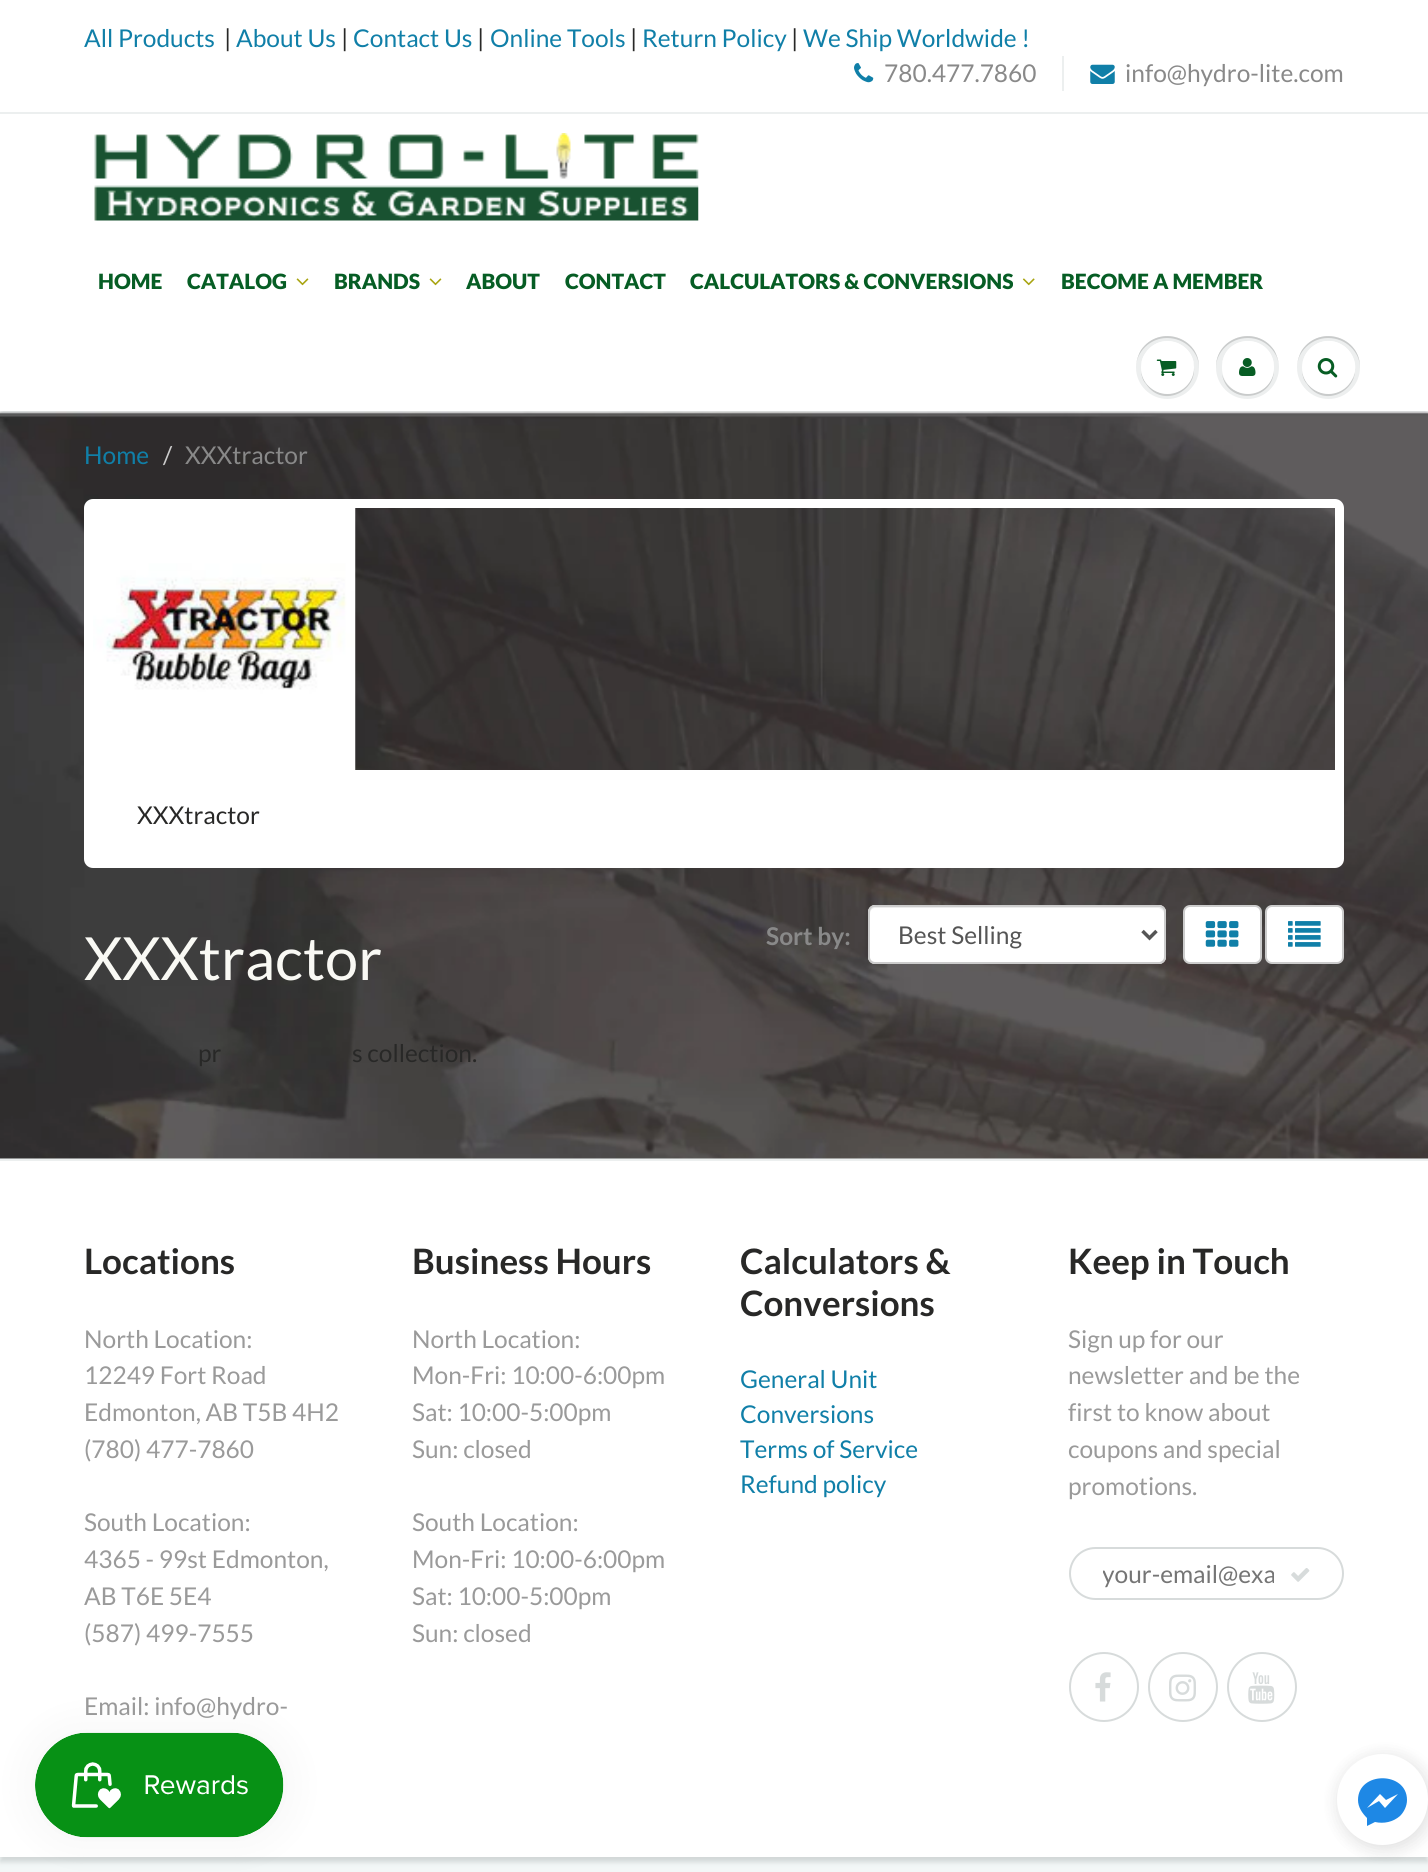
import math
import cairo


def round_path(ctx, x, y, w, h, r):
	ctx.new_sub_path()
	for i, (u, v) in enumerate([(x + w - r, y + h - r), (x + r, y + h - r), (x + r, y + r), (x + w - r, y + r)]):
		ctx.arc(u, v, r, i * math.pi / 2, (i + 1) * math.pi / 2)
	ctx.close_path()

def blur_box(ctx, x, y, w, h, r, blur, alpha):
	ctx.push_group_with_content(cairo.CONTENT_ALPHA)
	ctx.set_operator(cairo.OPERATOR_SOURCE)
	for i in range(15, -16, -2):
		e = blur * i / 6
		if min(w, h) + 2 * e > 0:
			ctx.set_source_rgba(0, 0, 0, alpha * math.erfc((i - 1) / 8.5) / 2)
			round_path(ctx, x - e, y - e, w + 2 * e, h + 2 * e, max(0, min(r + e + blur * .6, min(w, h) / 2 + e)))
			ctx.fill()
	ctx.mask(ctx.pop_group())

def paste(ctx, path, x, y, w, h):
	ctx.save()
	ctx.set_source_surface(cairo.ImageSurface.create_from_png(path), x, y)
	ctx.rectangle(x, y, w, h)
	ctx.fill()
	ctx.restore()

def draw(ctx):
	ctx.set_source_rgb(1, 1, 1)
	ctx.paint()
	ctx.select_font_face('Lato')
	ctx.set_font_size(24.5)
	ctx.set_source_rgb(0.063, 0.498, 0.659)
	ctx.move_to(84, 47)
	ctx.show_text('All Products')
	ctx.set_source_rgb(0.157, 0.157, 0.153)
	ctx.move_to(224, 47)
	ctx.show_text('|')
	ctx.set_source_rgb(0.063, 0.498, 0.659)
	ctx.move_to(236, 47)
	ctx.show_text('About Us')
	ctx.set_source_rgb(0.157, 0.157, 0.153)
	ctx.move_to(341, 47)
	ctx.show_text('|')
	ctx.set_source_rgb(0.063, 0.498, 0.659)
	ctx.move_to(353, 47)
	ctx.show_text('Contact Us')
	ctx.set_source_rgb(0.157, 0.157, 0.153)
	ctx.move_to(477, 47)
	ctx.show_text('|')
	ctx.set_source_rgb(0.063, 0.498, 0.659)
	ctx.move_to(490, 47)
	ctx.show_text('Online Tools')
	ctx.set_source_rgb(0.157, 0.157, 0.153)
	ctx.move_to(630, 47)
	ctx.show_text('|')
	ctx.set_source_rgb(0.063, 0.498, 0.659)
	ctx.move_to(642, 47)
	ctx.show_text('Return Policy')
	ctx.set_source_rgb(0.157, 0.157, 0.153)
	ctx.move_to(791, 47)
	ctx.show_text('|')
	ctx.set_source_rgb(0.063, 0.498, 0.659)
	ctx.move_to(803, 47)
	ctx.show_text('We Ship Worldwide !')
	paste(ctx, 'media/1.png', 854, 63, 20, 20)
	ctx.set_source_rgb(0.537, 0.537, 0.537)
	ctx.move_to(884, 82)
	ctx.show_text('780.477.7860')
	ctx.set_source_rgb(0.925, 0.937, 0.937)
	ctx.rectangle(1062, 56, 2, 35)
	ctx.fill()
	paste(ctx, 'media/2.png', 1090, 64, 25, 20)
	ctx.set_source_rgb(0.537, 0.537, 0.537)
	ctx.move_to(1125, 82)
	ctx.show_text('info@hydro-lite.com')
	ctx.set_source_rgb(0.953, 0.965, 0.965)
	ctx.rectangle(0, 411, 1428, 748)
	ctx.fill()
	paste(ctx, 'media/9.png', 0, 411, 1428, 748)
	ctx.save()
	ctx.rectangle(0, 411, 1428, 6)
	ctx.clip()
	ctx.set_source_rgb(0.043, 0.098, 0.11)
	blur_box(ctx, 0, 116, 1428, 299, 0, 2, 0.12)
	ctx.restore()
	ctx.set_source_rgb(0.925, 0.937, 0.937)
	ctx.rectangle(0, 112, 1428, 2)
	ctx.fill()
	paste(ctx, 'media/3.png', 94, 133, 605, 88)
	ctx.select_font_face('Lato Black')
	ctx.set_font_size(21)
	ctx.set_source_rgb(0.027, 0.365, 0.141)
	ctx.move_to(98, 289)
	ctx.show_text('HOME')
	ctx.move_to(187, 289)
	ctx.show_text('CATALOG')
	paste(ctx, 'media/4.png', 296, 278, 13, 8)
	ctx.move_to(334, 289)
	ctx.show_text('BRANDS')
	paste(ctx, 'media/4.png', 429, 278, 13, 8)
	for x, y, s in [
		(466, 289, 'ABOUT'),
		(565, 289, 'CONTACT'),
		(690, 289, 'CALCULATORS & CONVERSIONS'),
	]:
		ctx.move_to(x, y)
		ctx.show_text(s)
	paste(ctx, 'media/5.png', 1022, 278, 13, 8)
	ctx.move_to(1061, 289)
	ctx.show_text('BECOME A MEMBER')
	ctx.set_source_rgb(0.929, 0.937, 0.937)
	ctx.new_path()
	ctx.arc(1167.5, 367.5, 31.5, 0, 2 * math.pi)
	ctx.fill()
	ctx.set_source_rgb(0.788, 0.796, 0.796)
	ctx.new_path()
	ctx.move_to(1167, 338)
	ctx.curve_to(1185, 338, 1199, 352, 1199, 368)
	ctx.curve_to(1200, 337, 1159, 324, 1141, 350)
	ctx.curve_to(1138, 355, 1136, 362, 1136, 368)
	ctx.curve_to(1136, 352, 1150, 338, 1167, 338)
	ctx.close_path()
	ctx.fill()
	ctx.new_path()
	ctx.move_to(1141, 368)
	ctx.curve_to(1141, 374, 1142, 380, 1146, 384)
	ctx.curve_to(1163, 410, 1201, 390, 1193, 362)
	ctx.curve_to(1198, 387, 1168, 404, 1149, 386)
	ctx.curve_to(1144, 382, 1141, 375, 1141, 368)
	ctx.close_path()
	ctx.fill()
	ctx.set_source_rgb(1, 1, 1)
	ctx.arc(1167.5, 367.5, 26.5, 0, 2 * math.pi)
	ctx.fill()
	ctx.new_path()
	ctx.move_to(1167, 343)
	ctx.curve_to(1182, 343, 1194, 355, 1194, 368)
	ctx.curve_to(1195, 342, 1160, 331, 1146, 353)
	ctx.curve_to(1142, 357, 1141, 363, 1141, 368)
	ctx.curve_to(1141, 355, 1153, 343, 1167, 343)
	ctx.close_path()
	ctx.fill()
	paste(ctx, 'media/6.png', 1156, 359, 21, 17)
	ctx.set_source_rgb(0.929, 0.937, 0.937)
	ctx.arc(1247.5, 367.5, 31.5, 0, 2 * math.pi)
	ctx.fill()
	ctx.set_source_rgb(0.788, 0.796, 0.796)
	ctx.new_path()
	ctx.move_to(1248, 338)
	ctx.curve_to(1265, 338, 1279, 352, 1279, 368)
	ctx.curve_to(1279, 362, 1277, 355, 1274, 350)
	ctx.curve_to(1256, 324, 1215, 337, 1216, 368)
	ctx.curve_to(1216, 352, 1230, 338, 1248, 338)
	ctx.close_path()
	ctx.move_to(1222, 374)
	ctx.curve_to(1227, 406, 1275, 402, 1274, 368)
	ctx.curve_to(1273, 398, 1230, 403, 1222, 374)
	ctx.close_path()
	ctx.fill()
	ctx.set_source_rgb(1, 1, 1)
	round_path(ctx, 1222, 341, 52, 53, 26)
	ctx.fill()
	ctx.new_path()
	ctx.move_to(1248, 343)
	ctx.curve_to(1262, 343, 1274, 355, 1274, 369)
	ctx.curve_to(1275, 332, 1221, 332, 1222, 368)
	ctx.curve_to(1222, 355, 1233, 343, 1248, 343)
	ctx.close_path()
	ctx.fill()
	paste(ctx, 'media/7.png', 1239, 358, 17, 18)
	ctx.set_source_rgb(0.929, 0.937, 0.937)
	ctx.arc(1328.5, 367.5, 31.5, 0, 2 * math.pi)
	ctx.fill()
	ctx.set_source_rgb(0.788, 0.796, 0.796)
	ctx.new_path()
	ctx.move_to(1328, 338)
	ctx.curve_to(1346, 338, 1360, 352, 1360, 368)
	ctx.curve_to(1361, 337, 1320, 324, 1302, 350)
	ctx.curve_to(1299, 355, 1297, 362, 1297, 368)
	ctx.curve_to(1297, 352, 1311, 338, 1328, 338)
	ctx.close_path()
	ctx.fill()
	ctx.new_path()
	ctx.move_to(1302, 368)
	ctx.curve_to(1302, 374, 1303, 380, 1307, 384)
	ctx.curve_to(1324, 410, 1362, 390, 1354, 362)
	ctx.curve_to(1359, 387, 1329, 404, 1310, 386)
	ctx.curve_to(1305, 382, 1302, 375, 1302, 368)
	ctx.close_path()
	ctx.fill()
	ctx.set_source_rgb(1, 1, 1)
	ctx.arc(1328.5, 367.5, 26.5, 0, 2 * math.pi)
	ctx.fill()
	ctx.new_path()
	ctx.move_to(1328, 343)
	ctx.curve_to(1348, 343, 1359, 363, 1352, 380)
	ctx.curve_to(1366, 354, 1332, 327, 1310, 349)
	ctx.curve_to(1305, 354, 1302, 361, 1302, 368)
	ctx.curve_to(1302, 355, 1314, 343, 1328, 343)
	ctx.close_path()
	ctx.fill()
	paste(ctx, 'media/8.png', 1317, 358, 21, 20)
	ctx.select_font_face('Lato')
	ctx.set_font_size(24.5)
	ctx.set_source_rgb(0.063, 0.498, 0.659)
	ctx.move_to(84, 464)
	ctx.show_text('Home')
	ctx.set_source_rgb(0.8, 0.8, 0.8)
	ctx.move_to(163, 464)
	ctx.show_text('/')
	ctx.set_source_rgb(0.537, 0.537, 0.537)
	ctx.move_to(185, 464)
	ctx.show_text('XXXtractor')
	round_path(ctx, 88.5, 503.5, 1251, 360, 4.5)
	ctx.set_source_rgb(1, 1, 1)
	ctx.set_line_width(9)
	ctx.stroke()
	paste(ctx, 'media/10.png', 93, 508, 263, 262)
	ctx.rectangle(93, 770, 1242, 89)
	ctx.fill()
	ctx.set_source_rgb(0.157, 0.157, 0.153)
	ctx.move_to(137, 824)
	ctx.show_text('XXXtractor')
	ctx.select_font_face('Lato', cairo.FONT_SLANT_NORMAL, cairo.FONT_WEIGHT_BOLD)
	ctx.set_source_rgb(0.537, 0.537, 0.537)
	ctx.move_to(766, 945)
	ctx.show_text('Sort by:')
	ctx.set_source_rgb(1, 1, 1)
	round_path(ctx, 868, 905, 298, 59, 7)
	ctx.fill()
	ctx.set_source_rgb(0.925, 0.925, 0.925)
	ctx.new_path()
	ctx.move_to(875, 908)
	ctx.line_to(1158, 908)
	ctx.curve_to(1161, 908, 1164, 911, 1164, 914)
	ctx.curve_to(1164, 911, 1163, 907, 1159, 907)
	ctx.line_to(874, 907)
	ctx.curve_to(870, 908, 870, 911, 870, 914)
	ctx.curve_to(870, 911, 872, 908, 875, 908)
	ctx.close_path()
	ctx.fill()
	round_path(ctx, 869, 906, 296, 57, 6)
	ctx.set_source_rgb(0.8, 0.8, 0.8)
	ctx.set_line_width(2)
	ctx.stroke()
	ctx.new_path()
	ctx.move_to(1142.5, 931)
	ctx.line_to(1149.5, 938)
	ctx.line_to(1156.5, 931)
	ctx.set_source_rgb(0.333, 0.333, 0.333)
	ctx.set_line_width(3.5)
	ctx.stroke()
	ctx.select_font_face('Lato')
	ctx.move_to(898, 944)
	ctx.show_text('Best Selling')
	ctx.set_source_rgb(1, 1, 1)
	round_path(ctx, 1184, 906, 77, 57, 6)
	ctx.fill_preserve()
	ctx.set_source_rgb(0.8, 0.8, 0.8)
	ctx.set_line_width(2)
	ctx.stroke()
	paste(ctx, 'media/11.png', 1205, 921, 34, 26)
	ctx.set_source_rgb(1, 1, 1)
	round_path(ctx, 1266, 906, 77, 57, 6)
	ctx.fill_preserve()
	ctx.set_source_rgb(0.8, 0.8, 0.8)
	ctx.stroke()
	paste(ctx, 'media/12.png', 1288, 921, 33, 26)
	ctx.set_source_rgb(0.157, 0.157, 0.153)
	ctx.move_to(198, 1062)
	ctx.show_text('pr')
	ctx.move_to(352, 1062)
	ctx.show_text('s collection.')
	ctx.set_font_size(59.5)
	ctx.set_source_rgb(0.973, 0.973, 0.957)
	ctx.move_to(84, 980)
	ctx.show_text('XXXtractor')
	ctx.set_source_rgb(0.953, 0.965, 0.965)
	ctx.rectangle(0, 1857, 1428, 15)
	ctx.fill()
	ctx.set_source_rgb(0.82, 0.843, 0.843)
	blur_box(ctx, 0, 1164, 1428, 698, 0, 2.5, 1)
	ctx.set_source_rgb(1, 1, 1)
	ctx.rectangle(0, 1161, 1428, 696)
	ctx.fill()
	ctx.set_source_rgb(0.925, 0.937, 0.937)
	ctx.rectangle(0, 1159, 1428, 2)
	ctx.fill()
	ctx.select_font_face('Lato', cairo.FONT_SLANT_NORMAL, cairo.FONT_WEIGHT_BOLD)
	ctx.set_font_size(35)
	ctx.set_source_rgb(0.157, 0.157, 0.153)
	ctx.move_to(84, 1274)
	ctx.show_text('Locations')
	ctx.select_font_face('Lato')
	ctx.set_font_size(24.5)
	ctx.set_source_rgb(0.604, 0.604, 0.604)
	for x, y, s in [
		(84, 1348, 'North Location:'),
		(84, 1384, '12249 Fort Road'),
		(84, 1421, 'Edmonton, AB T5B 4H2'),
		(84, 1458, '(780) 477-7860'),
		(84, 1531, 'South Location:'),
		(84, 1568, '4365 - 99st Edmonton,'),
		(84, 1605, 'AB T6E 5E4'),
		(84, 1642, '(587) 499-7555'),
		(84, 1715, 'Email: info@hydro-'),
	]:
		ctx.move_to(x, y)
		ctx.show_text(s)
	ctx.select_font_face('Lato', cairo.FONT_SLANT_NORMAL, cairo.FONT_WEIGHT_BOLD)
	ctx.set_font_size(35)
	ctx.set_source_rgb(0.157, 0.157, 0.153)
	ctx.move_to(412, 1274)
	ctx.show_text('Business Hours')
	ctx.select_font_face('Lato')
	ctx.set_font_size(24.5)
	ctx.set_source_rgb(0.604, 0.604, 0.604)
	for x, y, s in [
		(412, 1348, 'North Location:'),
		(412, 1384, 'Mon-Fri: 10:00-6:00pm'),
		(412, 1421, 'Sat: 10:00-5:00pm'),
		(412, 1458, 'Sun: closed'),
		(412, 1531, 'South Location:'),
		(412, 1568, 'Mon-Fri: 10:00-6:00pm'),
		(412, 1605, 'Sat: 10:00-5:00pm'),
		(412, 1642, 'Sun: closed'),
	]:
		ctx.move_to(x, y)
		ctx.show_text(s)
	ctx.select_font_face('Lato', cairo.FONT_SLANT_NORMAL, cairo.FONT_WEIGHT_BOLD)
	ctx.set_font_size(35)
	ctx.set_source_rgb(0.157, 0.157, 0.153)
	ctx.move_to(740, 1274)
	ctx.show_text('Calculators &')
	ctx.move_to(740, 1316)
	ctx.show_text('Conversions')
	ctx.select_font_face('Lato')
	ctx.set_font_size(24.5)
	ctx.set_source_rgb(0.063, 0.498, 0.659)
	for x, y, s in [
		(740, 1388, 'General Unit'),
		(740, 1423, 'Conversions'),
		(740, 1458, 'Terms of Service'),
		(740, 1493, 'Refund policy'),
	]:
		ctx.move_to(x, y)
		ctx.show_text(s)
	ctx.select_font_face('Lato', cairo.FONT_SLANT_NORMAL, cairo.FONT_WEIGHT_BOLD)
	ctx.set_font_size(35)
	ctx.set_source_rgb(0.157, 0.157, 0.153)
	ctx.move_to(1068, 1274)
	ctx.show_text('Keep in Touch')
	ctx.select_font_face('Lato')
	ctx.set_font_size(24.5)
	ctx.set_source_rgb(0.604, 0.604, 0.604)
	for x, y, s in [
		(1068, 1348, 'Sign up for our'),
		(1068, 1384, 'newsletter and be the'),
		(1068, 1421, 'first to know about'),
		(1068, 1458, 'coupons and special'),
		(1068, 1495, 'promotions.'),
	]:
		ctx.move_to(x, y)
		ctx.show_text(s)
	round_path(ctx, 1070, 1548, 273, 51, 25.5)
	ctx.set_source_rgb(0.843, 0.859, 0.859)
	ctx.stroke()
	ctx.save()
	ctx.rectangle(1103, 1559, 178, 30)
	ctx.clip()
	ctx.set_source_rgb(0.459, 0.459, 0.459)
	ctx.move_to(1102, 1583)
	ctx.show_text('your-email@exa')
	ctx.restore()
	paste(ctx, 'media/13.png', 1291, 1568, 19, 14)
	ctx.arc(1104, 1687, 34, 0, 2 * math.pi)
	ctx.stroke()
	paste(ctx, 'media/14.png', 1095, 1672, 16, 30)
	ctx.arc(1183, 1687, 34, 0, 2 * math.pi)
	ctx.stroke()
	paste(ctx, 'media/15.png', 1169, 1674, 27, 28)
	ctx.arc(1262, 1687, 34, 0, 2 * math.pi)
	ctx.stroke()
	paste(ctx, 'media/16.png', 1248, 1672, 27, 32)
	ctx.set_source_rgb(0, 0, 0)
	blur_box(ctx, 35, 1733, 249, 105, 52.5, 22, 0.05)
	paste(ctx, 'media/17.png', 35, 1732, 249, 106)
	blur_box(ctx, 1337, 1757, 91, 91, 45.5, 9, 0.05)
	blur_box(ctx, 1337, 1754, 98, 98, 49, 8, 0.07)
	ctx.set_source_rgb(1, 1, 1)
	ctx.arc(1382.5, 1799.5, 45.5, 0, 2 * math.pi)
	ctx.fill()
	ctx.set_source_rgb(0.118, 0.533, 0.898)
	ctx.set_fill_rule(cairo.FILL_RULE_EVEN_ODD)
	ctx.new_path()
	ctx.move_to(1358, 1800)
	ctx.curve_to(1358, 1771, 1407, 1771, 1407, 1800)
	ctx.curve_to(1407, 1806, 1404, 1812, 1400, 1816)
	ctx.curve_to(1393, 1822, 1384, 1824, 1375, 1822)
	ctx.line_to(1367, 1826)
	ctx.line_to(1367, 1818)
	ctx.curve_to(1362, 1813, 1358, 1807, 1358, 1800)
	ctx.close_path()
	ctx.move_to(1379, 1801)
	ctx.line_to(1385, 1808)
	ctx.line_to(1398, 1794)
	ctx.line_to(1386, 1800)
	ctx.line_to(1380, 1794)
	ctx.line_to(1367, 1808)
	ctx.close_path()
	ctx.fill()


surface = cairo.ImageSurface(cairo.FORMAT_RGB24, 1428, 1872)
ctx = cairo.Context(surface)
options = cairo.FontOptions()
options.set_hint_metrics(cairo.HINT_METRICS_OFF)
options.set_hint_style(cairo.HINT_STYLE_NONE)
ctx.set_font_options(options)
ctx.set_miter_limit(4)
draw(ctx)
surface.write_to_png('image.png')
